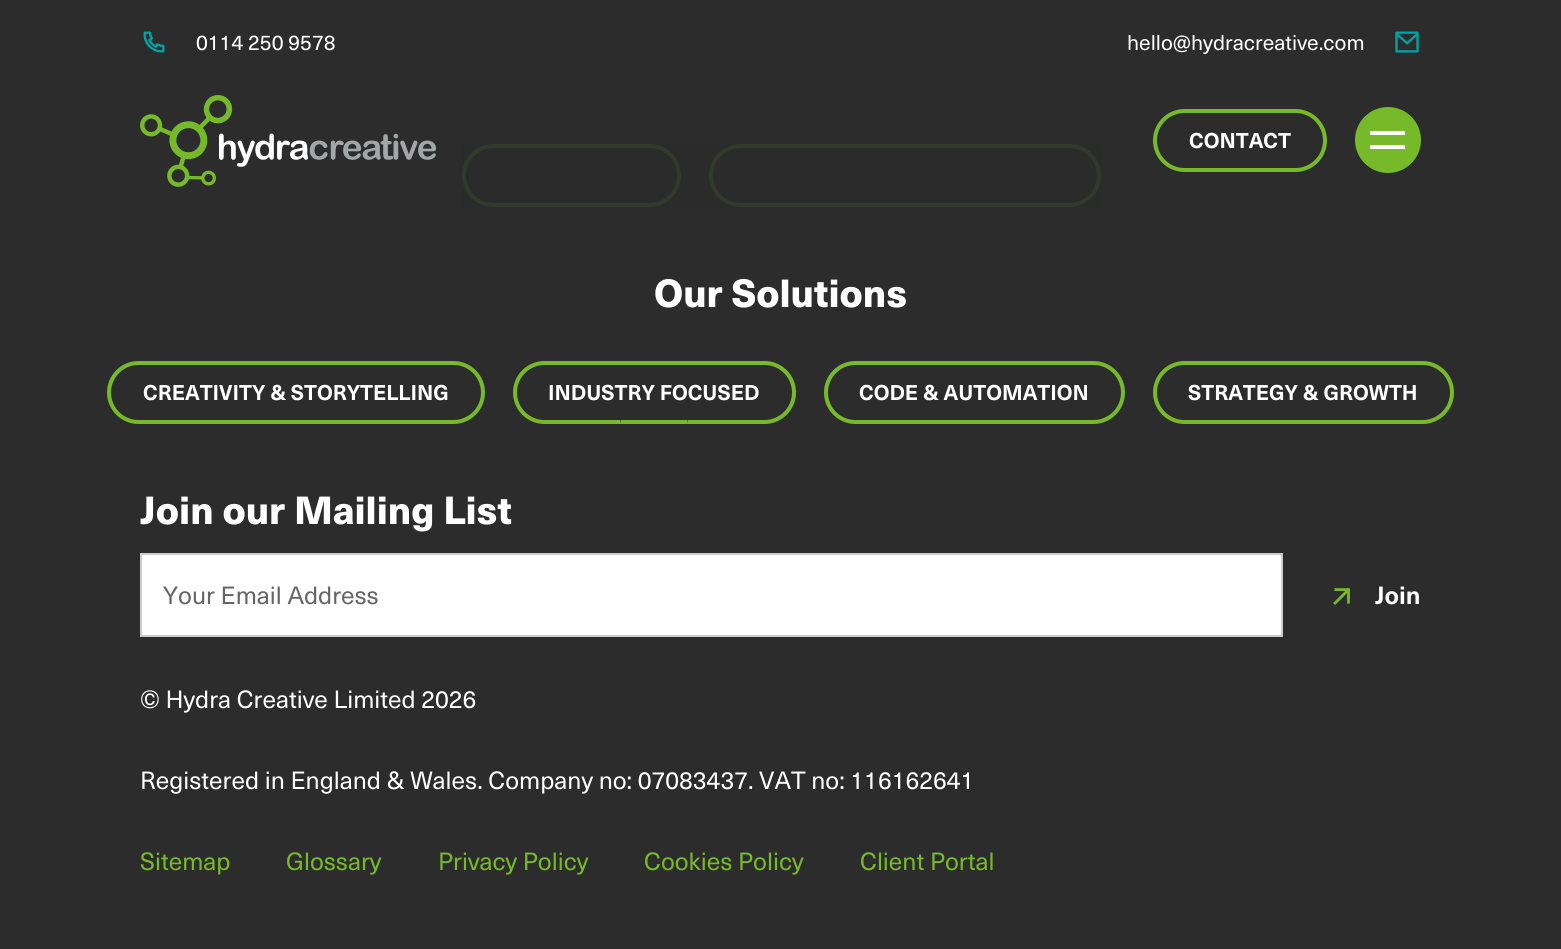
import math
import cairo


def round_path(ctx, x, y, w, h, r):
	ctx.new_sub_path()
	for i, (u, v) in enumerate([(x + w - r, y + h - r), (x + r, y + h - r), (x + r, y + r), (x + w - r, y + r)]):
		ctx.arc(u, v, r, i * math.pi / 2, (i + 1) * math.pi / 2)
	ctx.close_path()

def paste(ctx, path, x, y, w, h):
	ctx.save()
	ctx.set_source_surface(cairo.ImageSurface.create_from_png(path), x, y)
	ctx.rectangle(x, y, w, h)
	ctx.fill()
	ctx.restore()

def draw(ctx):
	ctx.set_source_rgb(0.173, 0.173, 0.173)
	ctx.paint()
	round_path(ctx, 464, 146, 215, 59, 29.5)
	ctx.set_source_rgb(0.467, 0.729, 0.161)
	ctx.set_line_width(4)
	ctx.stroke()
	round_path(ctx, 711, 146, 388, 59, 29.5)
	ctx.stroke()
	gradient = cairo.LinearGradient(0, 112, 1561, 112)
	gradient.add_color_stop_rgba(0, 0.173, 0.173, 0.173, 0.9)
	gradient.add_color_stop_rgba(0.5, 0.173, 0.173, 0.173, 0.9)
	gradient.add_color_stop_rgba(1, 0.173, 0.173, 0.173, 0.9)
	ctx.set_source(gradient)
	ctx.rectangle(462, 144, 639, 63)
	ctx.fill()
	paste(ctx, 'media/1.png', 143, 31, 22, 22)
	ctx.select_font_face('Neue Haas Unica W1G')
	ctx.set_font_size(21)
	ctx.set_source_rgb(1, 1, 1)
	ctx.move_to(196, 50)
	ctx.show_text('0114 250 9578')
	ctx.move_to(1127, 50)
	ctx.show_text('hello@hydracreative.com')
	paste(ctx, 'media/2.png', 1395, 31, 24, 22)
	paste(ctx, 'media/3.png', 140, 95, 297, 92)
	round_path(ctx, 1155, 111, 170, 59, 29.5)
	ctx.set_source_rgb(0.467, 0.729, 0.161)
	ctx.stroke()
	ctx.select_font_face('Neue Haas Unica W1G', cairo.FONT_SLANT_NORMAL, cairo.FONT_WEIGHT_BOLD)
	ctx.set_source_rgb(1, 1, 1)
	ctx.move_to(1189, 148)
	ctx.show_text('CONTACT')
	ctx.set_source_rgb(0.467, 0.729, 0.161)
	ctx.new_path()
	ctx.arc(1388, 140, 33, 0, 2 * math.pi)
	ctx.fill()
	ctx.set_source_rgb(1, 1, 1)
	ctx.rectangle(1370, 131, 35, 4)
	ctx.fill()
	ctx.rectangle(1370, 145, 35, 4)
	ctx.fill()
	ctx.select_font_face('Neue Haas Unica W1G Black')
	ctx.set_font_size(38.5)
	ctx.move_to(654, 307)
	ctx.show_text('Our Solutions')
	round_path(ctx, 109, 363, 374, 59, 29.5)
	ctx.set_source_rgb(0.467, 0.729, 0.161)
	ctx.stroke()
	ctx.select_font_face('Neue Haas Unica W1G', cairo.FONT_SLANT_NORMAL, cairo.FONT_WEIGHT_BOLD)
	ctx.set_font_size(21)
	ctx.set_source_rgb(1, 1, 1)
	ctx.move_to(143, 400)
	ctx.show_text('CREATIVITY & STORYTELLING')
	round_path(ctx, 515, 363, 279, 59, 29.5)
	ctx.set_source_rgb(0.467, 0.729, 0.161)
	ctx.stroke()
	ctx.set_source_rgb(0.173, 0.173, 0.173)
	ctx.new_path()
	ctx.move_to(654, 392)
	ctx.curve_to(673, 392, 688, 407, 688, 426)
	ctx.line_to(688, 420)
	ctx.line_to(620, 420)
	ctx.line_to(620, 426)
	ctx.curve_to(620, 407, 635, 392, 654, 392)
	ctx.close_path()
	ctx.fill()
	ctx.set_source_rgb(1, 1, 1)
	ctx.move_to(548, 400)
	ctx.show_text('INDUSTRY FOCUSED')
	round_path(ctx, 826, 363, 297, 59, 29.5)
	ctx.set_source_rgb(0.467, 0.729, 0.161)
	ctx.stroke()
	ctx.set_source_rgb(1, 1, 1)
	ctx.move_to(859, 400)
	ctx.show_text('CODE & AUTOMATION')
	round_path(ctx, 1155, 363, 297, 59, 29.5)
	ctx.set_source_rgb(0.467, 0.729, 0.161)
	ctx.stroke()
	ctx.set_source_rgb(1, 1, 1)
	ctx.move_to(1188, 400)
	ctx.show_text('STRATEGY & GROWTH')
	ctx.select_font_face('Neue Haas Unica W1G Black')
	ctx.set_font_size(38.5)
	ctx.move_to(140, 524)
	ctx.show_text('Join our Mailing List')
	ctx.rectangle(141, 554, 1141, 82)
	ctx.fill_preserve()
	ctx.set_source_rgb(0.8, 0.8, 0.8)
	ctx.set_line_width(2)
	ctx.stroke()
	ctx.select_font_face('Neue Haas Unica W1G')
	ctx.set_font_size(24.5)
	ctx.set_source_rgb(0.4, 0.4, 0.4)
	ctx.move_to(163, 604)
	ctx.show_text('Your Email Address')
	paste(ctx, 'media/4.png', 1333, 588, 17, 17)
	ctx.select_font_face('Neue Haas Unica W1G', cairo.FONT_SLANT_NORMAL, cairo.FONT_WEIGHT_BOLD)
	ctx.set_source_rgb(1, 1, 1)
	ctx.move_to(1375, 604)
	ctx.show_text('Join')
	ctx.select_font_face('Neue Haas Unica W1G')
	ctx.move_to(140, 708)
	ctx.show_text('© Hydra Creative Limited 2026')
	ctx.move_to(140, 789)
	ctx.show_text('Registered in England & Wales. Company no: 07083437. VAT no: 116162641')
	ctx.set_source_rgb(0.467, 0.729, 0.161)
	for x, y, s in [
		(140, 870, 'Sitemap'),
		(286, 870, 'Glossary'),
		(438, 870, 'Privacy Policy'),
		(644, 870, 'Cookies Policy'),
		(860, 870, 'Client Portal'),
	]:
		ctx.move_to(x, y)
		ctx.show_text(s)


surface = cairo.ImageSurface(cairo.FORMAT_RGB24, 1561, 949)
ctx = cairo.Context(surface)
options = cairo.FontOptions()
options.set_hint_metrics(cairo.HINT_METRICS_OFF)
options.set_hint_style(cairo.HINT_STYLE_NONE)
ctx.set_font_options(options)
ctx.set_miter_limit(4)
draw(ctx)
surface.write_to_png('image.png')
